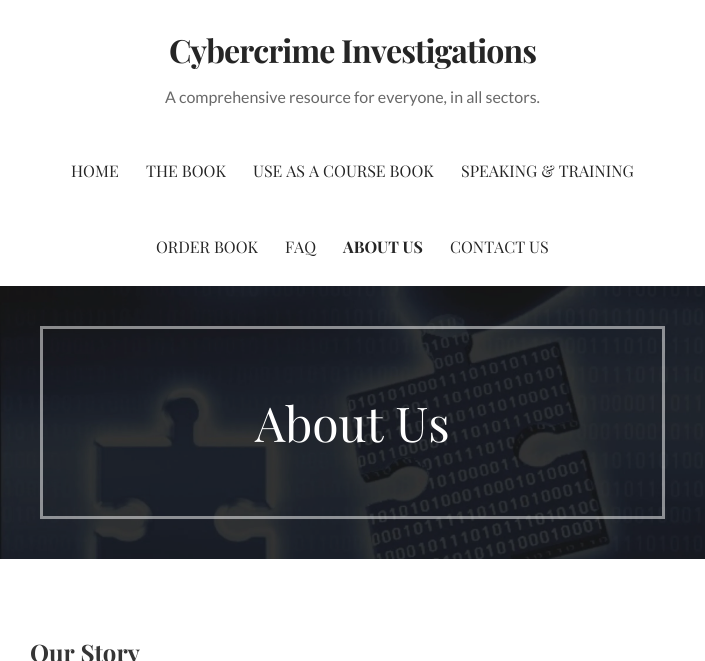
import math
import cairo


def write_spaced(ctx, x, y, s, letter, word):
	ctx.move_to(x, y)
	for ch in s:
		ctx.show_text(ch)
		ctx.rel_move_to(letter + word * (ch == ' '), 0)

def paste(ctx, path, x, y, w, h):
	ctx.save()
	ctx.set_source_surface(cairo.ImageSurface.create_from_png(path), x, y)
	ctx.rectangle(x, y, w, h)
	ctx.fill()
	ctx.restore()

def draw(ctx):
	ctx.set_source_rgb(1, 1, 1)
	ctx.paint()
	ctx.select_font_face('Playfair Display', cairo.FONT_SLANT_NORMAL, cairo.FONT_WEIGHT_BOLD)
	ctx.set_font_size(32)
	ctx.set_source_rgb(0.145, 0.145, 0.145)
	write_spaced(ctx, 169, 63, 'Cybercrime Investigations', -0.95, 0)
	ctx.select_font_face('Lato')
	ctx.set_font_size(16)
	ctx.set_source_rgb(0.408, 0.408, 0.408)
	ctx.move_to(165, 103)
	ctx.show_text('A comprehensive resource for everyone, in all sectors.')
	ctx.select_font_face('Playfair Display')
	ctx.set_source_rgb(0.145, 0.145, 0.145)
	for x, y, s in [
		(71, 177, 'HOME'),
		(146, 177, 'THE BOOK'),
		(253, 177, 'USE AS A COURSE BOOK'),
		(461, 177, 'SPEAKING & TRAINING'),
		(156, 253, 'ORDER BOOK'),
		(285, 253, 'FAQ'),
	]:
		ctx.move_to(x, y)
		ctx.show_text(s)
	ctx.select_font_face('Playfair Display', cairo.FONT_SLANT_NORMAL, cairo.FONT_WEIGHT_BOLD)
	ctx.move_to(343, 253)
	ctx.show_text('ABOUT US')
	ctx.select_font_face('Playfair Display')
	ctx.move_to(450, 253)
	ctx.show_text('CONTACT US')
	paste(ctx, 'media/1.png', 0, 286, 705, 273)
	ctx.rectangle(41.5, 327.5, 622, 190)
	ctx.set_source_rgba(1, 1, 1, 0.5)
	ctx.set_line_width(3)
	ctx.stroke()
	ctx.set_font_size(48)
	ctx.set_source_rgb(1, 1, 1)
	ctx.move_to(255, 442)
	ctx.show_text('About Us')
	ctx.select_font_face('Playfair Display', cairo.FONT_SLANT_NORMAL, cairo.FONT_WEIGHT_BOLD)
	ctx.set_font_size(24)
	ctx.set_source_rgb(0.208, 0.208, 0.208)
	ctx.move_to(30, 662)
	ctx.show_text('Our Story')


surface = cairo.ImageSurface(cairo.FORMAT_RGB24, 705, 661)
ctx = cairo.Context(surface)
options = cairo.FontOptions()
options.set_hint_metrics(cairo.HINT_METRICS_OFF)
options.set_hint_style(cairo.HINT_STYLE_NONE)
ctx.set_font_options(options)
ctx.set_miter_limit(4)
draw(ctx)
surface.write_to_png('image.png')
